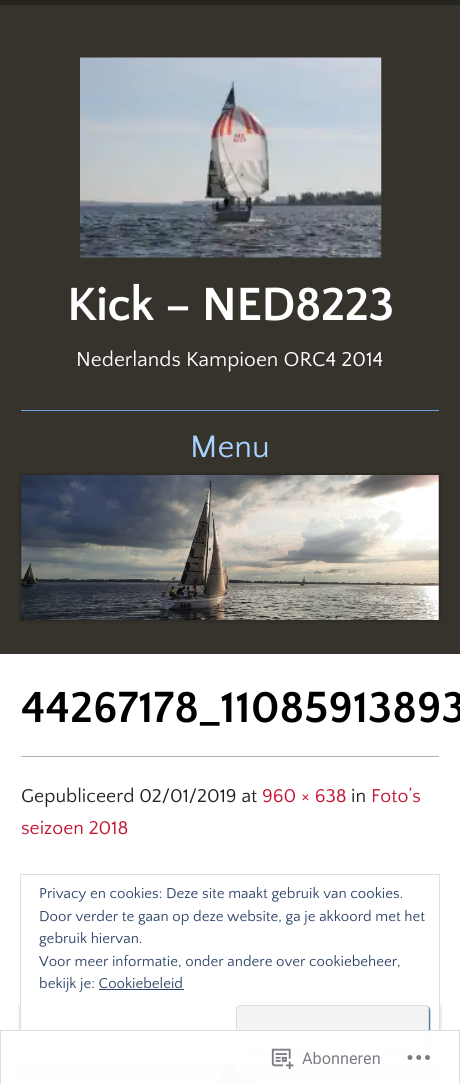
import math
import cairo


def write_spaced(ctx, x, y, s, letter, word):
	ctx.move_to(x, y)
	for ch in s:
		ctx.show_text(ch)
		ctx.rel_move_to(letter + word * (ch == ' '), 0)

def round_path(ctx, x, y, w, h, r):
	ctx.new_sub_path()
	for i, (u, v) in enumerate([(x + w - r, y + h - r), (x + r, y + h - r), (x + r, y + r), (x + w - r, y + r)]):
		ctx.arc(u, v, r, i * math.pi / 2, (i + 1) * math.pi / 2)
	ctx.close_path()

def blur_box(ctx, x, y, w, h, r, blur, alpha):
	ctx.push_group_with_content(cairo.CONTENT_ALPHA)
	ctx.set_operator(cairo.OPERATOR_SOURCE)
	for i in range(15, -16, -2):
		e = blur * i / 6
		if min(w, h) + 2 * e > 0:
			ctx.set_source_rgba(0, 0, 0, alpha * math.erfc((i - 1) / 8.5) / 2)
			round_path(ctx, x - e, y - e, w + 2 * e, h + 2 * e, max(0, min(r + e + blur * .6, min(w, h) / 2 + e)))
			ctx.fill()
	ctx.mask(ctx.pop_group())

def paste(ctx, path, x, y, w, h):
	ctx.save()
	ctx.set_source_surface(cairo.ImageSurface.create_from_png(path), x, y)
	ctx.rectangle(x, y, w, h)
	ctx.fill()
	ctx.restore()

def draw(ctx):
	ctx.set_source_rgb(1, 1, 1)
	ctx.paint()
	ctx.set_source_rgb(0.212, 0.2, 0.173)
	ctx.rectangle(0, 5, 460, 649)
	ctx.fill()
	ctx.set_source_rgb(0.149, 0.141, 0.122)
	ctx.rectangle(0, 0, 460, 5)
	ctx.fill()
	paste(ctx, 'media/1.png', 80, 57, 302, 201)
	ctx.select_font_face('Quattrocento Sans', cairo.FONT_SLANT_NORMAL, cairo.FONT_WEIGHT_BOLD)
	ctx.set_font_size(48.75)
	ctx.set_source_rgb(1, 1, 1)
	write_spaced(ctx, 67, 320, 'Kick – NED8223', -0.75, 0)
	ctx.select_font_face('Quattrocento Sans')
	ctx.set_font_size(21.1)
	ctx.move_to(76, 366)
	ctx.show_text('Nederlands Kampioen ORC4 2014')
	ctx.set_source_rgb(0.416, 0.639, 0.875)
	ctx.rectangle(21, 410, 418, 1)
	ctx.fill()
	ctx.set_font_size(32.5)
	ctx.set_source_rgb(0.655, 0.824, 1)
	ctx.move_to(190, 457)
	ctx.show_text('Menu')
	ctx.set_source_rgb(0, 0, 0)
	blur_box(ctx, 21, 475, 418, 145, 0, 2, 0.4)
	paste(ctx, 'media/2.png', 21, 475, 418, 145)
	ctx.set_source_rgb(0.702, 0.702, 0.702)
	ctx.rectangle(21, 756, 418, 1)
	ctx.fill()
	ctx.select_font_face('Quattrocento Sans', cairo.FONT_SLANT_NORMAL, cairo.FONT_WEIGHT_BOLD)
	ctx.set_font_size(45.5)
	ctx.set_source_rgb(0, 0, 0)
	ctx.move_to(21, 722)
	ctx.show_text('44267178_11085913893')
	ctx.select_font_face('Quattrocento Sans')
	ctx.set_font_size(19.5)
	ctx.set_source_rgb(0.129, 0.129, 0.129)
	ctx.move_to(21, 802)
	ctx.show_text('Gepubliceerd 02/01/2019 at')
	ctx.set_source_rgb(0.769, 0.082, 0.196)
	ctx.move_to(262, 802)
	ctx.show_text('960 × 638')
	ctx.set_source_rgb(0.129, 0.129, 0.129)
	ctx.move_to(351, 802)
	ctx.show_text('in')
	ctx.set_source_rgb(0.769, 0.082, 0.196)
	ctx.move_to(371, 802)
	ctx.show_text('Foto’s')
	ctx.move_to(21, 834)
	ctx.show_text('seizoen 2018')
	ctx.set_source_rgb(0, 0, 0)
	blur_box(ctx, 21, 1006, 418, 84, 0, 2, 0.4)
	paste(ctx, 'media/3.png', 21, 1065, 418, 19)
	ctx.set_source_rgb(1, 1, 1)
	ctx.rectangle(21, 1002, 418, 62)
	ctx.fill()
	ctx.rectangle(20.5, 874.5, 419, 190)
	ctx.set_source_rgb(0.871, 0.871, 0.871)
	ctx.set_line_width(1)
	ctx.stroke()
	ctx.set_font_size(15)
	ctx.set_source_rgb(0.18, 0.267, 0.404)
	for x, y, s in [
		(39, 898, 'Privacy en cookies: Deze site maakt gebruik van cookies.'),
		(39, 921, 'Door verder te gaan op deze website, ga je akkoord met het'),
		(39, 943, 'gebruik hiervan.'),
		(39, 966, 'Voor meer informatie, onder andere over cookiebeheer,'),
		(39, 988, 'bekijk je: Cookiebeleid'),
	]:
		ctx.move_to(x, y)
		ctx.show_text(s)
	ctx.rectangle(99, 989, 85, 1)
	ctx.fill()
	ctx.set_source_rgb(0.18, 0.416, 0.655)
	blur_box(ctx, 238, 1006, 192, 49, 4, 0.5, 1)
	ctx.set_source_rgb(0.953, 0.953, 0.953)
	round_path(ctx, 236.5, 1005.5, 192, 48, 3.5)
	ctx.fill_preserve()
	ctx.set_source_rgb(0.871, 0.871, 0.871)
	ctx.stroke()
	ctx.set_source_rgba(1, 1, 1, 0.98)
	ctx.rectangle(17, 1030, 426, 54)
	ctx.fill()
	ctx.rectangle(0.5, 1030.5, 459, 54)
	ctx.set_source_rgba(0.863, 0.863, 0.871, 0.98)
	ctx.stroke()
	paste(ctx, 'media/4.png', 271, 1048, 23, 22)
	ctx.select_font_face('Roboto')
	ctx.set_font_size(16.25)
	ctx.set_source_rgb(0.482, 0.498, 0.518)
	ctx.move_to(302, 1064)
	ctx.show_text('Abonneren')
	paste(ctx, 'media/5.png', 407, 1055, 23, 5)


surface = cairo.ImageSurface(cairo.FORMAT_RGB24, 460, 1084)
ctx = cairo.Context(surface)
options = cairo.FontOptions()
options.set_hint_metrics(cairo.HINT_METRICS_OFF)
options.set_hint_style(cairo.HINT_STYLE_NONE)
ctx.set_font_options(options)
ctx.set_miter_limit(4)
draw(ctx)
surface.write_to_png('image.png')
